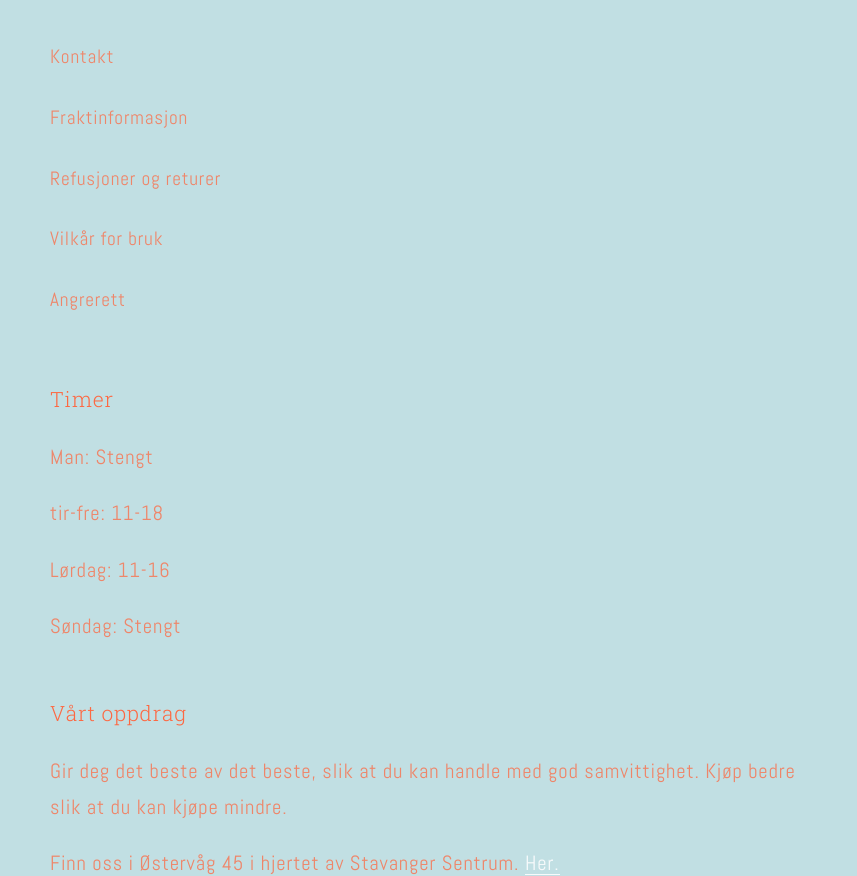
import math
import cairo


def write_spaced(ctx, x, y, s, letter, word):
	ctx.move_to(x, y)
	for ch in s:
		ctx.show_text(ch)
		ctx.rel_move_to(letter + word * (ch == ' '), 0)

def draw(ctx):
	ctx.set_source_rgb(0.757, 0.875, 0.89)
	ctx.paint()
	ctx.select_font_face('Abel')
	ctx.set_font_size(19.25)
	ctx.set_source_rgb(0.933, 0.525, 0.416)
	for x, y, s in [
		(50, 63, 'Kontakt'),
		(50, 124, 'Fraktinformasjon'),
		(50, 185, 'Refusjoner og returer'),
		(50, 245, 'Vilkår for bruk'),
		(50, 306, 'Angrerett'),
	]:
		write_spaced(ctx, x, y, s, 0.83, 0)
	ctx.select_font_face('Roboto Slab Light')
	ctx.set_font_size(21)
	ctx.set_source_rgb(0.992, 0.408, 0.259)
	write_spaced(ctx, 50, 407, 'Timer', 0.75, 0)
	ctx.select_font_face('Abel')
	ctx.set_font_size(20.6)
	ctx.set_source_rgb(0.933, 0.525, 0.416)
	for x, y, s in [
		(50, 464, 'Man: Stengt'),
		(50, 520, 'tir-fre: 11-18'),
		(50, 577, 'Lørdag: 11-16'),
		(50, 633, 'Søndag: Stengt'),
	]:
		write_spaced(ctx, x, y, s, 0.83, 0)
	ctx.select_font_face('Roboto Slab Light')
	ctx.set_font_size(21)
	ctx.set_source_rgb(0.992, 0.408, 0.259)
	write_spaced(ctx, 50, 721, 'Vårt oppdrag', 0.75, 0)
	ctx.select_font_face('Abel')
	ctx.set_font_size(20.6)
	ctx.set_source_rgb(0.933, 0.525, 0.416)
	for x, y, s in [
		(50, 778, 'Gir deg det beste av det beste, slik at du kan handle med god samvittighet. Kjøp bedre'),
		(50, 814, 'slik at du kan kjøpe mindre.'),
		(50, 870, 'Finn oss i Østervåg 45 i hjertet av Stavanger Sentrum.'),
	]:
		write_spaced(ctx, x, y, s, 0.83, 0)
	ctx.set_source_rgb(0.965, 0.98, 0.984)
	write_spaced(ctx, 525, 870, 'Her.', 0.83, 0)
	ctx.rectangle(525, 874, 35, 1)
	ctx.fill()


surface = cairo.ImageSurface(cairo.FORMAT_RGB24, 857, 876)
ctx = cairo.Context(surface)
options = cairo.FontOptions()
options.set_hint_metrics(cairo.HINT_METRICS_OFF)
options.set_hint_style(cairo.HINT_STYLE_NONE)
ctx.set_font_options(options)
ctx.set_miter_limit(4)
draw(ctx)
surface.write_to_png('image.png')
